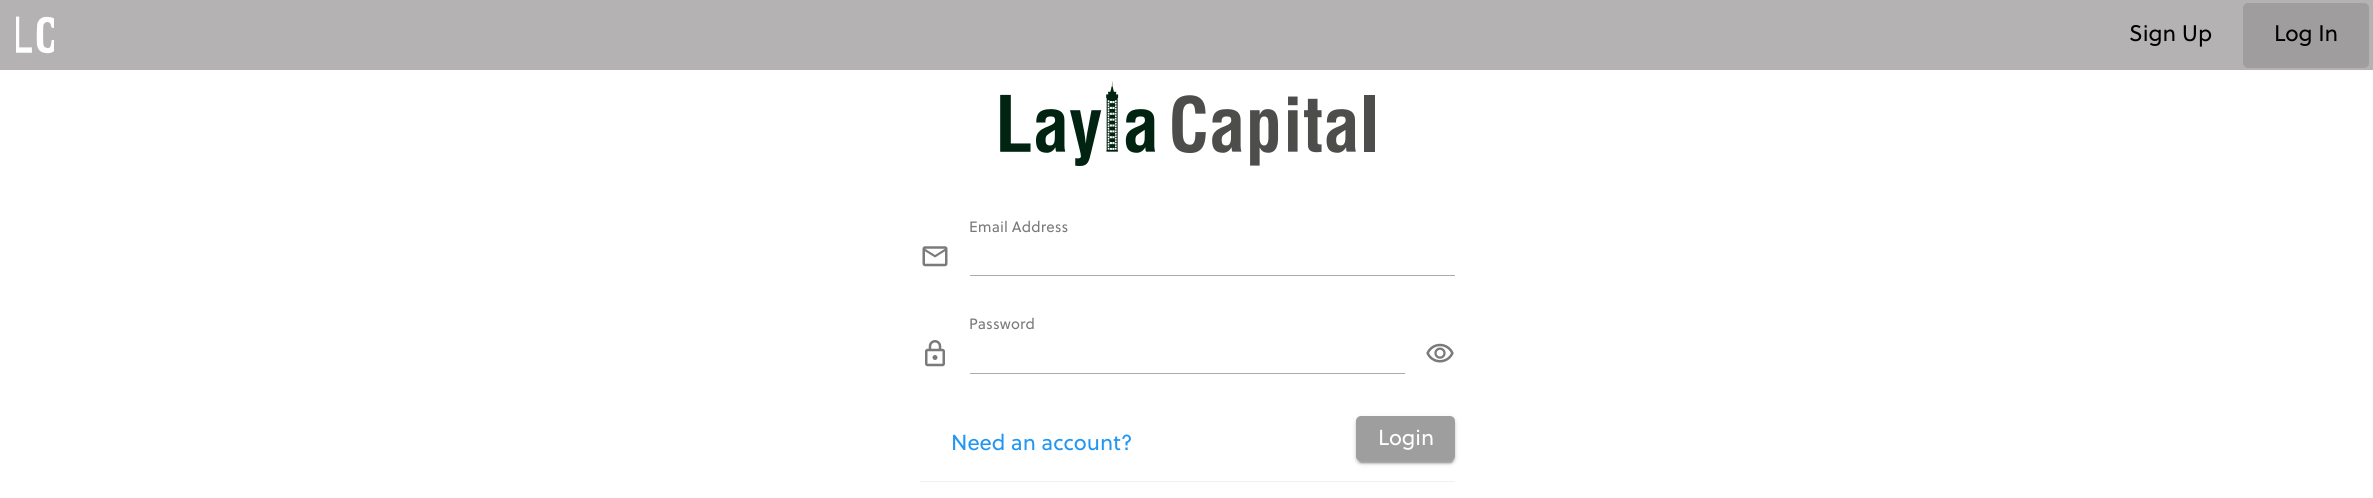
import math
import cairo


def write_spaced(ctx, x, y, s, letter, word):
	ctx.move_to(x, y)
	for ch in s:
		ctx.show_text(ch)
		ctx.rel_move_to(letter + word * (ch == ' '), 0)

def round_path(ctx, x, y, w, h, r):
	ctx.new_sub_path()
	for i, (u, v) in enumerate([(x + w - r, y + h - r), (x + r, y + h - r), (x + r, y + r), (x + w - r, y + r)]):
		ctx.arc(u, v, r, i * math.pi / 2, (i + 1) * math.pi / 2)
	ctx.close_path()

def blur_box(ctx, x, y, w, h, r, blur, alpha):
	ctx.push_group_with_content(cairo.CONTENT_ALPHA)
	ctx.set_operator(cairo.OPERATOR_SOURCE)
	for i in range(15, -16, -2):
		e = blur * i / 6
		if min(w, h) + 2 * e > 0:
			ctx.set_source_rgba(0, 0, 0, alpha * math.erfc((i - 1) / 8.5) / 2)
			round_path(ctx, x - e, y - e, w + 2 * e, h + 2 * e, max(0, min(r + e + blur * .6, min(w, h) / 2 + e)))
			ctx.fill()
	ctx.mask(ctx.pop_group())

def paste(ctx, path, x, y, w, h):
	ctx.save()
	ctx.set_source_surface(cairo.ImageSurface.create_from_png(path), x, y)
	ctx.rectangle(x, y, w, h)
	ctx.fill()
	ctx.restore()

def draw(ctx):
	ctx.set_source_rgb(1, 1, 1)
	ctx.paint()
	ctx.set_source_rgb(0.706, 0.698, 0.698)
	ctx.rectangle(0, 0, 2373, 70)
	ctx.fill()
	paste(ctx, 'media/1.png', 16, 16, 38, 38)
	ctx.select_font_face('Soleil')
	ctx.set_font_size(22.5)
	ctx.set_source_rgb(0, 0, 0)
	ctx.move_to(2129, 41)
	ctx.show_text('Sign Up')
	ctx.set_source_rgba(0, 0, 0, 0.12)
	round_path(ctx, 2243, 3, 126, 65, 5)
	ctx.fill()
	ctx.set_source_rgb(0, 0, 0)
	ctx.move_to(2274, 41)
	ctx.show_text('Log In')
	paste(ctx, 'media/2.png', 1000, 81, 375, 85)
	ctx.set_font_size(15)
	ctx.set_source_rgb(0.478, 0.478, 0.478)
	write_spaced(ctx, 969, 232, 'Email Address', 0.1, 0)
	ctx.set_source_rgb(0.671, 0.671, 0.671)
	ctx.rectangle(970, 275, 485, 1)
	ctx.fill()
	paste(ctx, 'media/3.png', 922, 246, 26, 21)
	ctx.set_source_rgb(0.478, 0.478, 0.478)
	write_spaced(ctx, 969, 329, 'Password', 0.1, 0)
	ctx.set_source_rgb(0.671, 0.671, 0.671)
	ctx.rectangle(970, 373, 435, 1)
	ctx.fill()
	paste(ctx, 'media/4.png', 925, 340, 20, 27)
	paste(ctx, 'media/5.png', 1426, 343, 28, 20)
	ctx.set_font_size(21.75)
	ctx.set_source_rgb(0.129, 0.588, 0.953)
	ctx.move_to(951, 450)
	ctx.show_text('Need an account?')
	ctx.set_source_rgb(0, 0, 0)
	blur_box(ctx, 1356, 418, 99, 45, 5, 3, 0.12)
	blur_box(ctx, 1356, 419, 99, 45, 5, 1, 0.14)
	blur_box(ctx, 1359, 423, 94, 40, 2.5, 0.5, 0.2)
	ctx.set_source_rgb(0.62, 0.62, 0.62)
	round_path(ctx, 1356, 416, 99, 45, 5)
	ctx.fill()
	ctx.set_source_rgb(1, 1, 1)
	ctx.move_to(1378, 445)
	ctx.show_text('Login')
	ctx.set_source_rgb(0.941, 0.941, 0.941)
	ctx.rectangle(920, 481, 535, 1)
	ctx.fill()


surface = cairo.ImageSurface(cairo.FORMAT_RGB24, 2373, 498)
ctx = cairo.Context(surface)
options = cairo.FontOptions()
options.set_hint_metrics(cairo.HINT_METRICS_OFF)
options.set_hint_style(cairo.HINT_STYLE_NONE)
ctx.set_font_options(options)
ctx.set_miter_limit(4)
draw(ctx)
surface.write_to_png('image.png')
